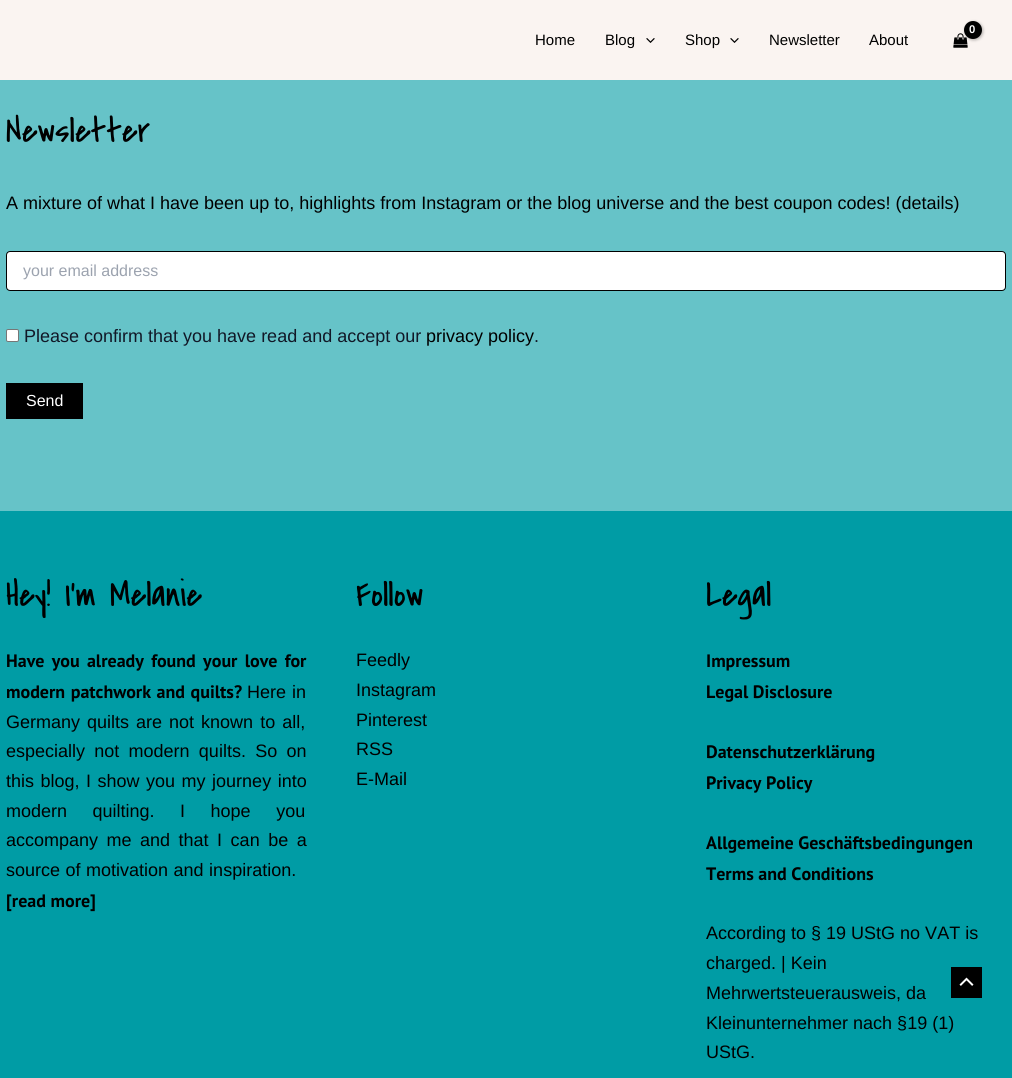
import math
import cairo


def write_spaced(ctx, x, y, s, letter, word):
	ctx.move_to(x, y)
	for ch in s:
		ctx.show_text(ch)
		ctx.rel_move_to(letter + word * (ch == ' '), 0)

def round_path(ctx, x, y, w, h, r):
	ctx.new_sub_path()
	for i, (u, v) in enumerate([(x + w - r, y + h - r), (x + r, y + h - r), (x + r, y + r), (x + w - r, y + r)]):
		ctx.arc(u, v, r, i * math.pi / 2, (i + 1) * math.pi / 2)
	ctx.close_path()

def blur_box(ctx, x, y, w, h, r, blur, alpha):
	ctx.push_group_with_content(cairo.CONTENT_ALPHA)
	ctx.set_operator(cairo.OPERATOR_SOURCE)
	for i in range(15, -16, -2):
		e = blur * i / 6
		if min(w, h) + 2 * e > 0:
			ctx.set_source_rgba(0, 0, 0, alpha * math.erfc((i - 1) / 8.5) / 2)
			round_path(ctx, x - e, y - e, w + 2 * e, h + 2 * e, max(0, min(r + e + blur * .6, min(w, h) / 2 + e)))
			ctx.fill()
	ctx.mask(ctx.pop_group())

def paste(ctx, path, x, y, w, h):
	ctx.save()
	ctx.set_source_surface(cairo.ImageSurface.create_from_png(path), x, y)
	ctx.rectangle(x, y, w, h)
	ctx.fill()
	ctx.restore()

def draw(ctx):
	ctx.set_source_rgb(0.4, 0.765, 0.784)
	ctx.paint()
	ctx.set_source_rgb(0.98, 0.957, 0.945)
	ctx.rectangle(0, 0, 1012, 80)
	ctx.fill()
	paste(ctx, 'media/1.png', 953, 33, 15, 15)
	ctx.set_source_rgb(0, 0, 0)
	blur_box(ctx, 965, 22, 18, 18, 9, 1.5, 0.3)
	ctx.set_source_rgb(0, 0, 0)
	ctx.arc(973, 30, 9, 0, 2 * math.pi)
	ctx.fill()
	ctx.select_font_face('PT Sans', cairo.FONT_SLANT_NORMAL, cairo.FONT_WEIGHT_BOLD)
	ctx.set_font_size(11)
	ctx.set_source_rgb(1, 1, 1)
	ctx.move_to(969, 33)
	ctx.show_text('0')
	ctx.select_font_face('Liberation Sans')
	ctx.set_font_size(15)
	ctx.set_source_rgb(0, 0, 0)
	ctx.move_to(535, 45)
	ctx.show_text('Home')
	ctx.move_to(605, 45)
	ctx.show_text('Blog')
	paste(ctx, 'media/2.png', 646, 38, 9, 5)
	ctx.move_to(685, 45)
	ctx.show_text('Shop')
	paste(ctx, 'media/2.png', 730, 38, 9, 5)
	ctx.move_to(769, 45)
	ctx.show_text('Newsletter')
	ctx.move_to(869, 45)
	ctx.show_text('About')
	ctx.select_font_face('Covered By Your Grace')
	ctx.set_font_size(36)
	ctx.move_to(6, 142)
	ctx.show_text('Newsletter')
	ctx.select_font_face('Liberation Sans')
	ctx.set_font_size(18)
	ctx.move_to(6, 209)
	ctx.show_text('A mixture of what I have been up to, highlights from Instagram or the blog universe and the best coupon codes! (details)')
	ctx.set_source_rgb(1, 1, 1)
	round_path(ctx, 6.5, 251.5, 999, 39, 3.5)
	ctx.fill_preserve()
	ctx.set_source_rgb(0, 0, 0)
	ctx.set_line_width(1)
	ctx.stroke()
	ctx.set_font_size(16)
	ctx.set_source_rgb(0.612, 0.639, 0.686)
	ctx.move_to(23, 276)
	ctx.show_text('your email address')
	ctx.set_source_rgb(1, 1, 1)
	round_path(ctx, 6.5, 329.5, 12, 12, 1.5)
	ctx.fill_preserve()
	ctx.set_source_rgb(0.463, 0.463, 0.463)
	ctx.stroke()
	ctx.set_font_size(18)
	ctx.set_source_rgb(0.067, 0.094, 0.153)
	ctx.move_to(24, 342)
	ctx.show_text('Please confirm that you have read and accept our')
	ctx.set_source_rgb(0, 0, 0)
	ctx.move_to(426, 342)
	ctx.show_text('privacy policy')
	ctx.set_source_rgb(0.067, 0.094, 0.153)
	ctx.move_to(534, 342)
	ctx.show_text('.')
	ctx.set_source_rgb(0, 0, 0)
	ctx.rectangle(6, 383, 77, 36)
	ctx.fill()
	ctx.set_font_size(16)
	ctx.set_source_rgb(1, 1, 1)
	ctx.move_to(26, 406)
	ctx.show_text('Send')
	ctx.set_source_rgb(0, 0.612, 0.647)
	ctx.rectangle(0, 511, 1012, 567)
	ctx.fill()
	ctx.select_font_face('Covered By Your Grace')
	ctx.set_font_size(36)
	ctx.set_source_rgb(0, 0, 0)
	ctx.move_to(6, 606)
	ctx.show_text('Hey! I’m Melanie')
	ctx.select_font_face('PT Sans', cairo.FONT_SLANT_NORMAL, cairo.FONT_WEIGHT_BOLD)
	ctx.set_font_size(18)
	write_spaced(ctx, 6, 667, 'Have you already found your love for', 0, 2.75)
	write_spaced(ctx, 6, 698, 'modern patchwork and quilts?', 0, 1)
	ctx.select_font_face('Liberation Sans')
	write_spaced(ctx, 247, 698, 'Here in', 0, 1)
	write_spaced(ctx, 6, 728, 'Germany quilts are not known to all,', 0, 2)
	write_spaced(ctx, 6, 757, 'especially not modern quilts. So on', 0, 4.25)
	write_spaced(ctx, 6, 787, 'this blog, I show you my journey into', 0, 1.5)
	write_spaced(ctx, 6, 817, 'modern quilting. I hope you', 0, 20.5)
	write_spaced(ctx, 6, 846, 'accompany me and that I can be a', 0, 3.5)
	write_spaced(ctx, 6, 876, 'source of motivation and inspiration.', 0, 0.5)
	ctx.select_font_face('PT Sans', cairo.FONT_SLANT_NORMAL, cairo.FONT_WEIGHT_BOLD)
	ctx.move_to(6, 907)
	ctx.show_text('[read more]')
	ctx.select_font_face('Covered By Your Grace')
	ctx.set_font_size(36)
	ctx.move_to(356, 606)
	ctx.show_text('Follow')
	ctx.select_font_face('Liberation Sans')
	ctx.set_font_size(18)
	for x, y, s in [
		(356, 666, 'Feedly'),
		(356, 696, 'Instagram'),
		(356, 726, 'Pinterest'),
		(356, 755, 'RSS'),
		(356, 785, 'E-Mail'),
	]:
		ctx.move_to(x, y)
		ctx.show_text(s)
	ctx.select_font_face('Covered By Your Grace')
	ctx.set_font_size(36)
	ctx.move_to(706, 606)
	ctx.show_text('Legal')
	ctx.select_font_face('PT Sans', cairo.FONT_SLANT_NORMAL, cairo.FONT_WEIGHT_BOLD)
	ctx.set_font_size(18)
	for x, y, s in [
		(706, 667, 'Impressum'),
		(706, 698, 'Legal Disclosure'),
		(706, 758, 'Datenschutzerklärung'),
		(706, 789, 'Privacy Policy'),
		(706, 849, 'Allgemeine Geschäftsbedingungen'),
		(706, 880, 'Terms and Conditions'),
	]:
		ctx.move_to(x, y)
		ctx.show_text(s)
	ctx.select_font_face('Liberation Sans')
	for x, y, s in [
		(706, 939, 'According to § 19 UStG no VAT is'),
		(706, 969, 'charged. | Kein'),
		(706, 999, 'Mehrwertsteuerausweis, da'),
		(706, 1029, 'Kleinunternehmer nach §19 (1)'),
		(706, 1058, 'UStG.'),
	]:
		ctx.move_to(x, y)
		ctx.show_text(s)
	ctx.rectangle(951, 967, 31, 31)
	ctx.fill()
	paste(ctx, 'media/3.png', 959, 977, 15, 9)


surface = cairo.ImageSurface(cairo.FORMAT_RGB24, 1012, 1078)
ctx = cairo.Context(surface)
options = cairo.FontOptions()
options.set_hint_metrics(cairo.HINT_METRICS_OFF)
options.set_hint_style(cairo.HINT_STYLE_NONE)
ctx.set_font_options(options)
ctx.set_miter_limit(4)
draw(ctx)
surface.write_to_png('image.png')
